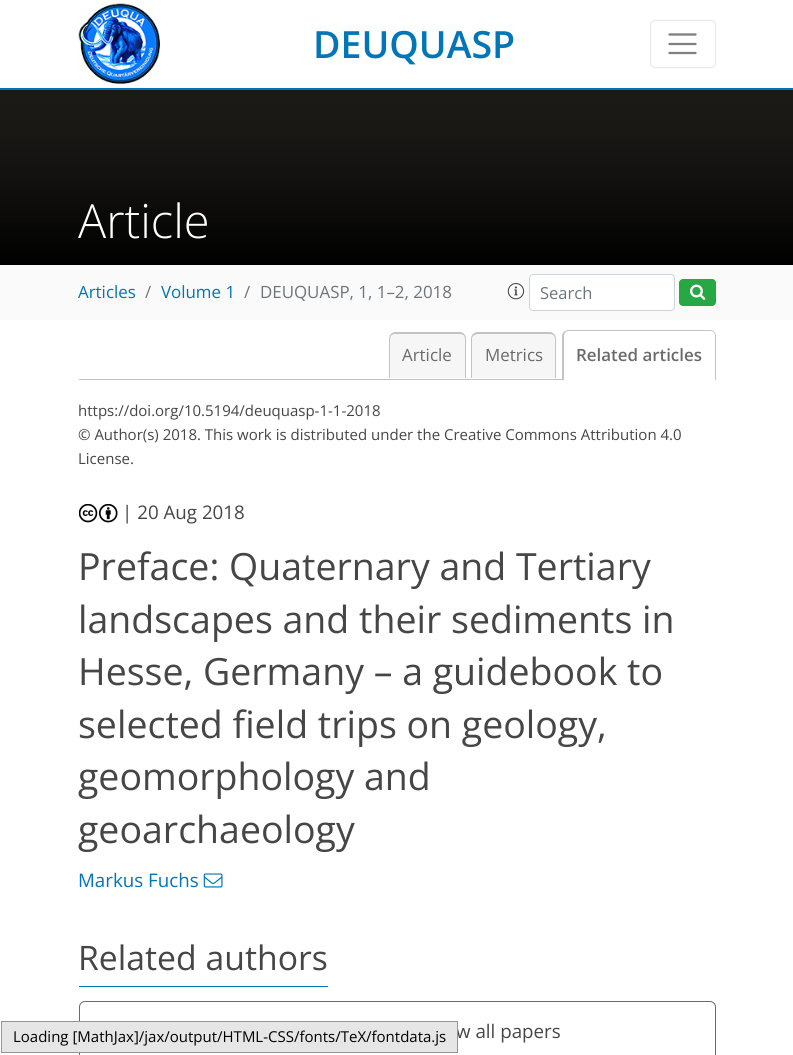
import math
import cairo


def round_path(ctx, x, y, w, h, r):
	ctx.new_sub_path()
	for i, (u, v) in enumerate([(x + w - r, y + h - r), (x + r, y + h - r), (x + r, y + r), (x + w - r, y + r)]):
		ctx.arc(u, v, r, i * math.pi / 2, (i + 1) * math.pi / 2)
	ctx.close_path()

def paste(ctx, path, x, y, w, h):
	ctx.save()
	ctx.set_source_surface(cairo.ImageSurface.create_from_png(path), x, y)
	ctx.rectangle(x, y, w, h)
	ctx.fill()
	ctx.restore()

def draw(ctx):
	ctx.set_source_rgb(1, 1, 1)
	ctx.paint()
	paste(ctx, 'media/1.png', 78, 3, 82, 81)
	ctx.select_font_face('Open Sans SemiBold')
	ctx.set_font_size(37.5)
	ctx.set_source_rgb(0, 0.459, 0.722)
	ctx.move_to(313, 58)
	ctx.show_text('DEUQUASP')
	round_path(ctx, 650.5, 20.5, 65, 47, 4.5)
	ctx.set_source_rgb(0.902, 0.902, 0.902)
	ctx.set_line_width(1)
	ctx.stroke()
	ctx.new_path()
	ctx.move_to(669.5, 34.5)
	ctx.line_to(695.5, 34.5)
	ctx.move_to(669.5, 44)
	ctx.line_to(695.5, 44)
	ctx.move_to(669.5, 53)
	ctx.line_to(695.5, 53)
	ctx.set_source_rgb(0.502, 0.502, 0.502)
	ctx.set_line_width(2.3)
	ctx.set_line_cap(cairo.LINE_CAP_ROUND)
	ctx.stroke()
	ctx.set_source_rgb(0, 0.459, 0.722)
	ctx.rectangle(0, 88, 793, 2)
	ctx.fill()
	gradient = cairo.LinearGradient(397, 265, 397, 90)
	gradient.add_color_stop_rgba(0, 0, 0, 0, 1)
	gradient.add_color_stop_rgba(0.19, 0.027, 0.027, 0.024, 1)
	gradient.add_color_stop_rgba(0.34, 0.051, 0.047, 0.043, 1)
	gradient.add_color_stop_rgba(0.47, 0.067, 0.063, 0.055, 1)
	gradient.add_color_stop_rgba(0.56, 0.078, 0.075, 0.067, 1)
	gradient.add_color_stop_rgba(0.65, 0.09, 0.082, 0.075, 1)
	gradient.add_color_stop_rgba(0.73, 0.098, 0.09, 0.078, 1)
	gradient.add_color_stop_rgba(0.8, 0.102, 0.094, 0.082, 1)
	gradient.add_color_stop_rgba(0.86, 0.106, 0.098, 0.086, 1)
	gradient.add_color_stop_rgba(0.91, 0.106, 0.098, 0.09, 1)
	gradient.add_color_stop_rgba(0.95, 0.11, 0.102, 0.09, 1)
	gradient.add_color_stop_rgba(1, 0.11, 0.102, 0.09, 1)
	ctx.set_source(gradient)
	ctx.rectangle(0, 90, 793, 175)
	ctx.fill()
	ctx.select_font_face('Open Sans Light')
	ctx.set_font_size(47)
	ctx.set_source_rgb(1, 1, 1)
	ctx.move_to(78, 238)
	ctx.show_text('Article')
	ctx.set_source_rgb(0.98, 0.98, 0.98)
	ctx.rectangle(0, 265, 793, 55)
	ctx.fill()
	ctx.select_font_face('Open Sans')
	ctx.set_font_size(16.9)
	ctx.set_source_rgb(0, 0.459, 0.722)
	ctx.move_to(78, 298)
	ctx.show_text('Articles')
	ctx.set_source_rgb(0.424, 0.459, 0.49)
	ctx.move_to(145, 298)
	ctx.show_text('/')
	ctx.set_source_rgb(0, 0.459, 0.722)
	ctx.move_to(161, 298)
	ctx.show_text('Volume 1')
	ctx.set_source_rgb(0.424, 0.459, 0.49)
	ctx.move_to(244, 298)
	ctx.show_text('/')
	ctx.move_to(260, 298)
	ctx.show_text('DEUQUASP, 1, 1–2, 2018')
	paste(ctx, 'media/2.png', 507, 283, 18, 17)
	ctx.set_source_rgb(1, 1, 1)
	round_path(ctx, 530, 275, 144, 35, 2.5)
	ctx.fill()
	round_path(ctx, 529.5, 274.5, 145, 36, 3.5)
	ctx.set_source_rgb(0.808, 0.831, 0.855)
	ctx.set_line_width(1)
	ctx.set_line_cap(cairo.LINE_CAP_BUTT)
	ctx.stroke()
	ctx.set_font_size(16.5)
	ctx.set_source_rgb(0.424, 0.459, 0.49)
	ctx.move_to(540, 299)
	ctx.show_text('Search')
	ctx.set_source_rgb(0.157, 0.655, 0.271)
	round_path(ctx, 679.5, 279.5, 36, 26, 3.5)
	ctx.fill_preserve()
	ctx.stroke()
	paste(ctx, 'media/3.png', 690, 284, 16, 16)
	ctx.set_source_rgb(0.765, 0.765, 0.765)
	ctx.rectangle(79, 379, 483, 1)
	ctx.fill()
	ctx.set_source_rgb(0.961, 0.961, 0.961)
	ctx.new_path()
	ctx.move_to(395, 333)
	ctx.line_to(460, 333)
	ctx.curve_to(463.5, 333, 466, 335.5, 466, 339)
	ctx.line_to(466, 378)
	ctx.line_to(389, 378)
	ctx.line_to(389, 339)
	ctx.curve_to(389, 335.5, 391.5, 333, 395, 333)
	ctx.close_path()
	ctx.fill()
	ctx.set_source_rgb(0.765, 0.765, 0.765)
	ctx.set_fill_rule(cairo.FILL_RULE_EVEN_ODD)
	ctx.new_path()
	ctx.move_to(395, 332)
	ctx.line_to(460, 332)
	ctx.curve_to(463, 332, 466, 335, 466, 339)
	ctx.line_to(466, 378)
	ctx.line_to(389, 378)
	ctx.line_to(389, 339)
	ctx.curve_to(389, 335, 392, 332, 395, 332)
	ctx.close_path()
	ctx.move_to(395, 334)
	ctx.line_to(460, 334)
	ctx.curve_to(463, 334, 465, 336, 465, 339)
	ctx.line_to(465, 378)
	ctx.line_to(390, 378)
	ctx.line_to(390, 339)
	ctx.curve_to(390, 336, 392, 334, 395, 334)
	ctx.close_path()
	ctx.fill()
	ctx.set_font_size(16.9)
	ctx.set_source_rgb(0.416, 0.416, 0.416)
	ctx.move_to(402, 361)
	ctx.show_text('Article')
	ctx.set_source_rgb(0.961, 0.961, 0.961)
	ctx.new_path()
	ctx.move_to(477, 333)
	ctx.line_to(550, 333)
	ctx.curve_to(553.5, 333, 556, 335.5, 556, 339)
	ctx.line_to(556, 378)
	ctx.line_to(471, 378)
	ctx.line_to(471, 339)
	ctx.curve_to(471, 335.5, 473.5, 333, 477, 333)
	ctx.close_path()
	ctx.fill()
	ctx.set_source_rgb(0.765, 0.765, 0.765)
	ctx.new_path()
	ctx.move_to(478, 332)
	ctx.line_to(550, 332)
	ctx.curve_to(553, 332, 556, 335, 556, 339)
	ctx.line_to(556, 378)
	ctx.line_to(471, 378)
	ctx.line_to(471, 339)
	ctx.curve_to(471, 335, 474, 332, 478, 332)
	ctx.close_path()
	ctx.move_to(478, 334)
	ctx.line_to(550, 334)
	ctx.curve_to(553, 334, 555, 336, 555, 339)
	ctx.line_to(555, 378)
	ctx.line_to(472, 378)
	ctx.line_to(472, 339)
	ctx.curve_to(472, 336, 475, 334, 478, 334)
	ctx.close_path()
	ctx.fill()
	ctx.set_source_rgb(0.416, 0.416, 0.416)
	ctx.move_to(485, 361)
	ctx.show_text('Metrics')
	ctx.set_source_rgb(0.765, 0.765, 0.765)
	ctx.new_path()
	ctx.move_to(569, 330)
	ctx.line_to(710, 330)
	ctx.curve_to(713, 330, 716, 333, 716, 336)
	ctx.line_to(716, 380)
	ctx.line_to(562, 380)
	ctx.line_to(562, 336)
	ctx.curve_to(562, 333, 565, 330, 569, 330)
	ctx.close_path()
	ctx.move_to(569, 331)
	ctx.line_to(710, 331)
	ctx.curve_to(713, 331, 715, 333, 715, 336)
	ctx.line_to(715, 380)
	ctx.line_to(564, 380)
	ctx.line_to(564, 336)
	ctx.curve_to(564, 333, 566, 331, 569, 331)
	ctx.close_path()
	ctx.fill()
	ctx.select_font_face('Open Sans SemiBold')
	ctx.set_source_rgb(0.416, 0.416, 0.416)
	ctx.move_to(576, 361)
	ctx.show_text('Related articles')
	ctx.select_font_face('Open Sans')
	ctx.set_font_size(15)
	ctx.set_source_rgb(0.275, 0.275, 0.275)
	for x, y, s in [
		(78, 416, 'https://doi.org/10.5194/deuquasp-1-1-2018'),
		(78, 440, '© Author(s) 2018. This work is distributed under the Creative Commons Attribution 4.0'),
		(78, 464, 'License.'),
	]:
		ctx.move_to(x, y)
		ctx.show_text(s)
	paste(ctx, 'media/4.png', 79, 504, 39, 19)
	ctx.set_font_size(18.75)
	ctx.move_to(122, 519)
	ctx.show_text('| 20 Aug 2018')
	ctx.set_font_size(37.5)
	for x, y, s in [
		(78, 580, 'Preface: Quaternary and Tertiary'),
		(78, 633, 'landscapes and their sediments in'),
		(78, 685, 'Hesse, Germany – a guidebook to'),
		(78, 738, 'selected field trips on geology,'),
		(78, 790, 'geomorphology and'),
		(78, 843, 'geoarchaeology'),
	]:
		ctx.move_to(x, y)
		ctx.show_text(s)
	ctx.set_font_size(18.75)
	ctx.set_source_rgb(0, 0.459, 0.722)
	ctx.move_to(78, 887)
	ctx.show_text('Markus Fuchs')
	paste(ctx, 'media/5.png', 203, 873, 20, 15)
	ctx.rectangle(79, 986, 249, 1)
	ctx.fill()
	ctx.set_font_size(33.75)
	ctx.set_source_rgb(0.275, 0.275, 0.275)
	ctx.move_to(78, 970)
	ctx.show_text('Related authors')
	round_path(ctx, 79.5, 1001.5, 636, 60, 5.5)
	ctx.set_source_rgb(0.416, 0.416, 0.416)
	ctx.stroke()
	ctx.set_font_size(18.75)
	ctx.set_source_rgb(0.275, 0.275, 0.275)
	ctx.move_to(456, 1038)
	ctx.show_text('w all papers')
	ctx.set_source_rgb(0.902, 0.902, 0.902)
	ctx.rectangle(1.5, 1021.5, 456, 31)
	ctx.fill_preserve()
	ctx.set_source_rgb(0.584, 0.584, 0.584)
	ctx.stroke()
	ctx.set_font_size(15)
	ctx.set_source_rgb(0, 0, 0)
	ctx.move_to(13, 1042)
	ctx.show_text('Loading [MathJax]/jax/output/HTML-CSS/fonts/TeX/fontdata.js')


surface = cairo.ImageSurface(cairo.FORMAT_RGB24, 793, 1055)
ctx = cairo.Context(surface)
options = cairo.FontOptions()
options.set_hint_metrics(cairo.HINT_METRICS_OFF)
options.set_hint_style(cairo.HINT_STYLE_NONE)
ctx.set_font_options(options)
ctx.set_miter_limit(4)
draw(ctx)
surface.write_to_png('image.png')
